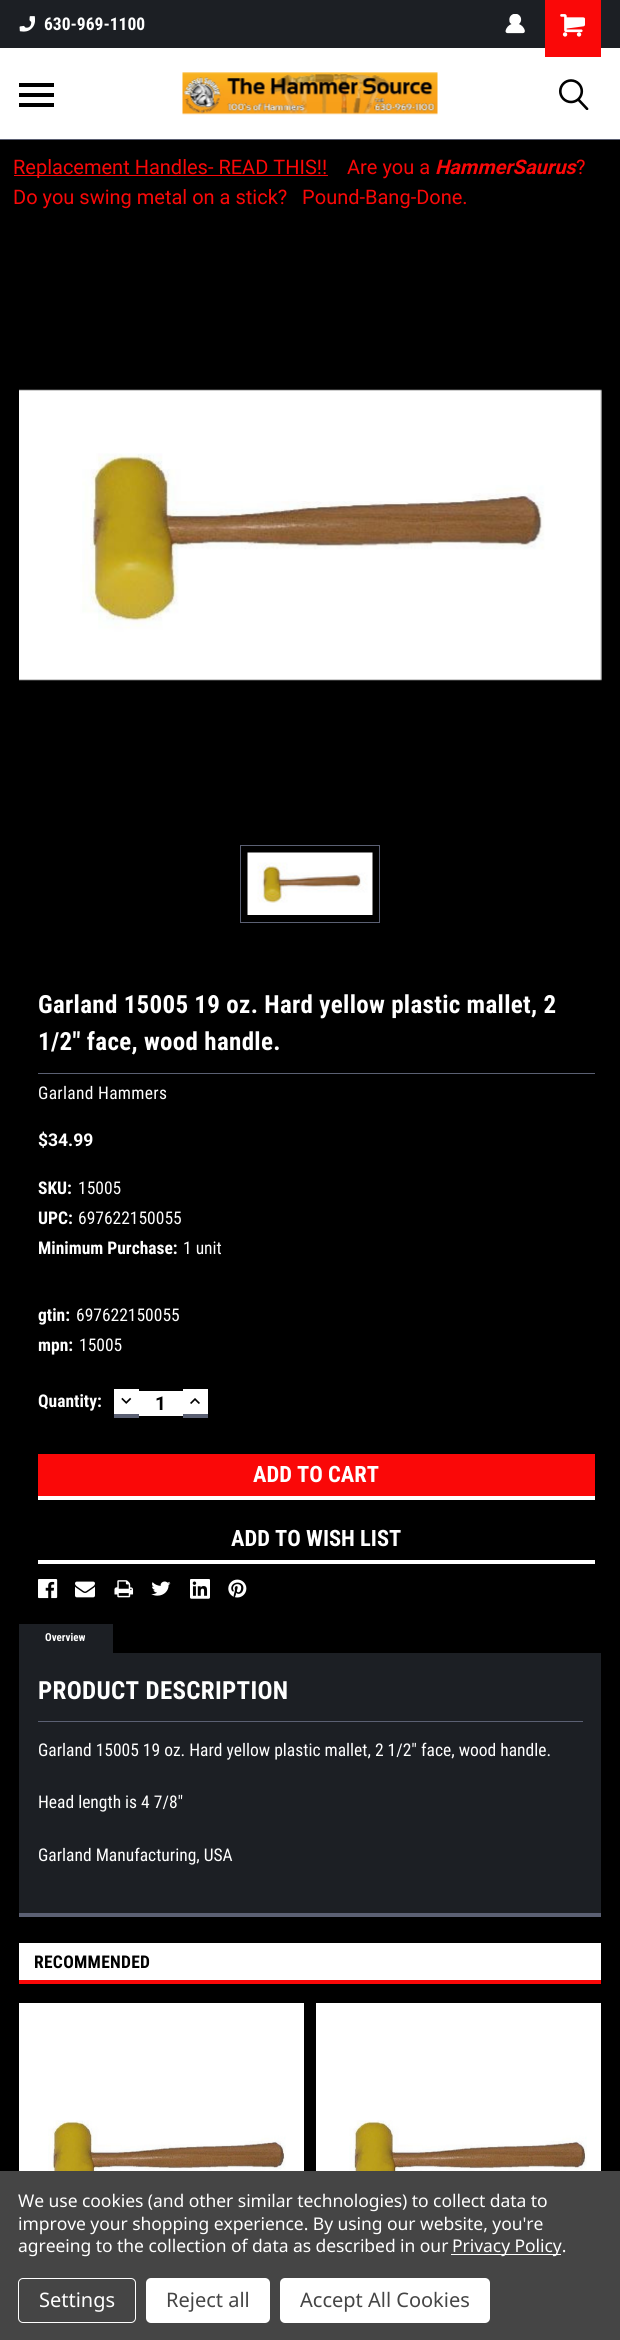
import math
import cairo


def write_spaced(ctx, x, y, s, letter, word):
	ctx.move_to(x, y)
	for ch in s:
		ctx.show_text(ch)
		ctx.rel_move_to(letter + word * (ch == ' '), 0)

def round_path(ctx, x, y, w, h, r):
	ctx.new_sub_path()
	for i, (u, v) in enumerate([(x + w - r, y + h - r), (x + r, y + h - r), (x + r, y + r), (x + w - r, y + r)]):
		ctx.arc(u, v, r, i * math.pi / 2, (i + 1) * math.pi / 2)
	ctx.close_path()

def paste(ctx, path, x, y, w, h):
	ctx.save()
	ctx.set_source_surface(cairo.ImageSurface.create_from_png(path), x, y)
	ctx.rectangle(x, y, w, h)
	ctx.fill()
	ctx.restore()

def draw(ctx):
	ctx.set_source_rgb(0, 0, 0)
	ctx.paint()
	ctx.set_source_rgb(0.357, 0.376, 0.451)
	ctx.rectangle(0, 139, 620, 1)
	ctx.fill()
	ctx.set_source_rgb(0.11, 0.122, 0.141)
	ctx.rectangle(0, 0, 620, 48)
	ctx.fill()
	paste(ctx, 'media/1.png', 19, 16, 16, 16)
	ctx.select_font_face('Roboto Condensed', cairo.FONT_SLANT_NORMAL, cairo.FONT_WEIGHT_BOLD)
	ctx.set_font_size(17.5)
	ctx.set_source_rgb(1, 1, 1)
	ctx.move_to(44, 30)
	ctx.show_text('630-969-1100')
	paste(ctx, 'media/2.png', 505, 14, 20, 20)
	ctx.rectangle(0, 48, 620, 91)
	ctx.fill()
	ctx.set_source_rgb(0.98, 0.035, 0.035)
	ctx.rectangle(545, 0, 56, 57)
	ctx.fill()
	paste(ctx, 'media/3.png', 560, 14, 25, 23)
	ctx.set_source_rgb(0, 0, 0)
	ctx.rectangle(19, 93, 35, 4)
	ctx.rectangle(19, 83, 35, 4)
	ctx.rectangle(19, 103, 35, 4)
	ctx.fill()
	paste(ctx, 'media/4.png', 182, 72, 256, 43)
	paste(ctx, 'media/5.png', 559, 79, 30, 31)
	ctx.set_source_rgb(0.98, 0.035, 0.035)
	ctx.rectangle(14, 175, 314, 1)
	ctx.fill()
	ctx.select_font_face('Roboto')
	ctx.set_font_size(20)
	ctx.move_to(13, 174)
	ctx.show_text('Replacement Handles- READ THIS!!')
	ctx.move_to(347, 174)
	ctx.show_text('Are you a')
	ctx.select_font_face('Roboto', cairo.FONT_SLANT_ITALIC, cairo.FONT_WEIGHT_BOLD)
	ctx.move_to(435, 174)
	ctx.show_text('HammerSaurus')
	ctx.select_font_face('Roboto')
	ctx.move_to(576, 174)
	ctx.show_text('?')
	ctx.move_to(13, 204)
	ctx.show_text('Do you swing metal on a stick?   Pound-Bang-Done.')
	paste(ctx, 'media/6.png', 19, 389, 583, 292)
	ctx.rectangle(240.5, 845.5, 139, 77)
	ctx.set_source_rgb(0.357, 0.376, 0.451)
	ctx.set_line_width(1)
	ctx.stroke()
	paste(ctx, 'media/7.png', 247, 852, 126, 63)
	ctx.rectangle(38, 1073, 557, 1)
	ctx.fill()
	ctx.select_font_face('Roboto Condensed', cairo.FONT_SLANT_NORMAL, cairo.FONT_WEIGHT_BOLD)
	ctx.set_font_size(25)
	ctx.set_source_rgb(1, 1, 1)
	write_spaced(ctx, 38, 1013, 'Garland 15005 19 oz. Hard yellow plastic mallet, 2', 0.3, 0)
	write_spaced(ctx, 38, 1050, '1/2" face, wood handle.', 0.3, 0)
	ctx.select_font_face('Roboto Condensed')
	ctx.set_font_size(17.5)
	write_spaced(ctx, 38, 1099, 'Garland Hammers', 0.3, 0)
	ctx.select_font_face('Roboto', cairo.FONT_SLANT_NORMAL, cairo.FONT_WEIGHT_BOLD)
	ctx.move_to(38, 1146)
	ctx.show_text('$34.99')
	ctx.select_font_face('Roboto Condensed', cairo.FONT_SLANT_NORMAL, cairo.FONT_WEIGHT_BOLD)
	ctx.move_to(38, 1194)
	ctx.show_text('SKU:')
	ctx.select_font_face('Roboto Condensed')
	ctx.move_to(78, 1194)
	ctx.show_text('15005')
	ctx.select_font_face('Roboto Condensed', cairo.FONT_SLANT_NORMAL, cairo.FONT_WEIGHT_BOLD)
	ctx.move_to(38, 1224)
	ctx.show_text('UPC:')
	ctx.select_font_face('Roboto Condensed')
	ctx.move_to(78, 1224)
	ctx.show_text('697622150055')
	ctx.select_font_face('Roboto Condensed', cairo.FONT_SLANT_NORMAL, cairo.FONT_WEIGHT_BOLD)
	ctx.move_to(38, 1254)
	ctx.show_text('Minimum Purchase:')
	ctx.select_font_face('Roboto Condensed')
	ctx.move_to(183, 1254)
	ctx.show_text('1 unit')
	ctx.select_font_face('Roboto Condensed', cairo.FONT_SLANT_NORMAL, cairo.FONT_WEIGHT_BOLD)
	ctx.move_to(38, 1321)
	ctx.show_text('gtin:')
	ctx.select_font_face('Roboto Condensed')
	ctx.move_to(76, 1321)
	ctx.show_text('697622150055')
	ctx.select_font_face('Roboto Condensed', cairo.FONT_SLANT_NORMAL, cairo.FONT_WEIGHT_BOLD)
	ctx.move_to(38, 1351)
	ctx.show_text('mpn:')
	ctx.select_font_face('Roboto Condensed')
	ctx.move_to(79, 1351)
	ctx.show_text('15005')
	ctx.select_font_face('Roboto Condensed', cairo.FONT_SLANT_NORMAL, cairo.FONT_WEIGHT_BOLD)
	ctx.move_to(38, 1407)
	ctx.show_text('Quantity:')
	ctx.rectangle(114, 1389, 25, 25)
	ctx.fill()
	ctx.set_source_rgb(0.357, 0.376, 0.451)
	ctx.rectangle(114, 1414, 25, 4)
	ctx.fill()
	paste(ctx, 'media/8.png', 121, 1397, 11, 7)
	ctx.set_source_rgb(1, 1, 1)
	ctx.rectangle(139, 1391, 44, 25)
	ctx.fill()
	ctx.select_font_face('Roboto', cairo.FONT_SLANT_NORMAL, cairo.FONT_WEIGHT_BOLD)
	ctx.set_font_size(19)
	ctx.set_source_rgb(0, 0, 0)
	ctx.move_to(155, 1410)
	ctx.show_text('1')
	ctx.set_source_rgb(1, 1, 1)
	ctx.rectangle(183, 1389, 25, 25)
	ctx.fill()
	ctx.set_source_rgb(0.357, 0.376, 0.451)
	ctx.rectangle(183, 1414, 25, 4)
	ctx.fill()
	paste(ctx, 'media/9.png', 190, 1398, 10, 6)
	ctx.set_source_rgb(0.98, 0.035, 0.035)
	ctx.rectangle(38, 1454, 557, 42)
	ctx.fill()
	ctx.set_source_rgb(1, 1, 1)
	ctx.rectangle(38, 1496, 557, 4)
	ctx.fill()
	ctx.select_font_face('Roboto Condensed', cairo.FONT_SLANT_NORMAL, cairo.FONT_WEIGHT_BOLD)
	ctx.set_font_size(22.5)
	ctx.move_to(253, 1482)
	ctx.show_text('ADD TO CART')
	ctx.rectangle(38, 1560, 557, 4)
	ctx.fill()
	ctx.move_to(231, 1546)
	ctx.show_text('ADD TO WISH LIST')
	paste(ctx, 'media/10.png', 38, 1579, 20, 20)
	paste(ctx, 'media/11.png', 75, 1581, 20, 17)
	paste(ctx, 'media/12.png', 114, 1580, 20, 18)
	paste(ctx, 'media/13.png', 151, 1581, 20, 15)
	paste(ctx, 'media/14.png', 190, 1579, 20, 20)
	paste(ctx, 'media/15.png', 228, 1579, 19, 19)
	ctx.set_source_rgb(0.11, 0.122, 0.141)
	ctx.rectangle(19, 1624, 94, 29)
	ctx.fill()
	ctx.set_font_size(11)
	ctx.set_source_rgb(1, 1, 1)
	ctx.move_to(45, 1641)
	ctx.show_text('Overview')
	ctx.set_source_rgb(0.11, 0.122, 0.141)
	ctx.rectangle(19, 1653, 582, 260)
	ctx.fill()
	ctx.set_source_rgb(0.357, 0.376, 0.451)
	ctx.rectangle(19, 1913, 582, 4)
	ctx.rectangle(38, 1721, 545, 1)
	ctx.fill()
	ctx.set_font_size(25)
	ctx.set_source_rgb(1, 1, 1)
	write_spaced(ctx, 38, 1699, 'PRODUCT DESCRIPTION', 0.3, 0)
	ctx.select_font_face('Roboto Condensed')
	ctx.set_font_size(17.5)
	for x, y, s in [
		(38, 1756, 'Garland 15005 19 oz. Hard yellow plastic mallet, 2 1/2" face, wood handle.'),
		(38, 1808, 'Head length is 4 7/8"'),
		(38, 1861, 'Garland Manufacturing, USA'),
	]:
		ctx.move_to(x, y)
		ctx.show_text(s)
	ctx.rectangle(19, 1943, 582, 37)
	ctx.fill()
	ctx.set_source_rgb(0.98, 0.035, 0.035)
	ctx.rectangle(19, 1980, 582, 4)
	ctx.fill()
	ctx.select_font_face('Roboto Condensed', cairo.FONT_SLANT_NORMAL, cairo.FONT_WEIGHT_BOLD)
	ctx.set_source_rgb(0, 0, 0)
	write_spaced(ctx, 34, 1968, 'RECOMMENDED', 0.3, 0)
	ctx.set_source_rgb(1, 1, 1)
	ctx.rectangle(19, 2003, 285, 168)
	ctx.fill()
	paste(ctx, 'media/16.png', 48, 2120, 238, 51)
	ctx.rectangle(316, 2003, 285, 168)
	ctx.fill()
	paste(ctx, 'media/17.png', 349, 2120, 238, 51)
	ctx.set_source_rgb(0.271, 0.271, 0.271)
	ctx.rectangle(0, 2171, 620, 169)
	ctx.fill()
	ctx.select_font_face('Noto Sans')
	ctx.set_source_rgb(1, 1, 1)
	for x, y, s in [
		(18, 2207, 'We use cookies (and other similar technologies) to collect data to'),
		(18, 2230, 'improve your shopping experience. By using our website, you\'re'),
		(18, 2252, 'agreeing to the collection of data as described in our'),
	]:
		write_spaced(ctx, x, y, s, -0.05, 0)
	ctx.rectangle(451, 2254, 110, 1)
	ctx.fill()
	write_spaced(ctx, 452, 2252, 'Privacy Policy.', -0.05, 0)
	round_path(ctx, 18.5, 2278.5, 117, 44, 4.5)
	ctx.stroke()
	ctx.set_font_size(20)
	ctx.move_to(39, 2307)
	ctx.show_text('Settings')
	round_path(ctx, 146, 2278, 124, 45, 5)
	ctx.fill()
	ctx.set_source_rgb(0.271, 0.271, 0.271)
	ctx.move_to(166, 2307)
	ctx.show_text('Reject all')
	ctx.set_source_rgb(1, 1, 1)
	round_path(ctx, 280, 2278, 210, 45, 5)
	ctx.fill()
	ctx.set_source_rgb(0.271, 0.271, 0.271)
	ctx.move_to(300, 2307)
	ctx.show_text('Accept All Cookies')


surface = cairo.ImageSurface(cairo.FORMAT_RGB24, 620, 2340)
ctx = cairo.Context(surface)
options = cairo.FontOptions()
options.set_hint_metrics(cairo.HINT_METRICS_OFF)
options.set_hint_style(cairo.HINT_STYLE_NONE)
ctx.set_font_options(options)
ctx.set_miter_limit(4)
draw(ctx)
surface.write_to_png('image.png')
